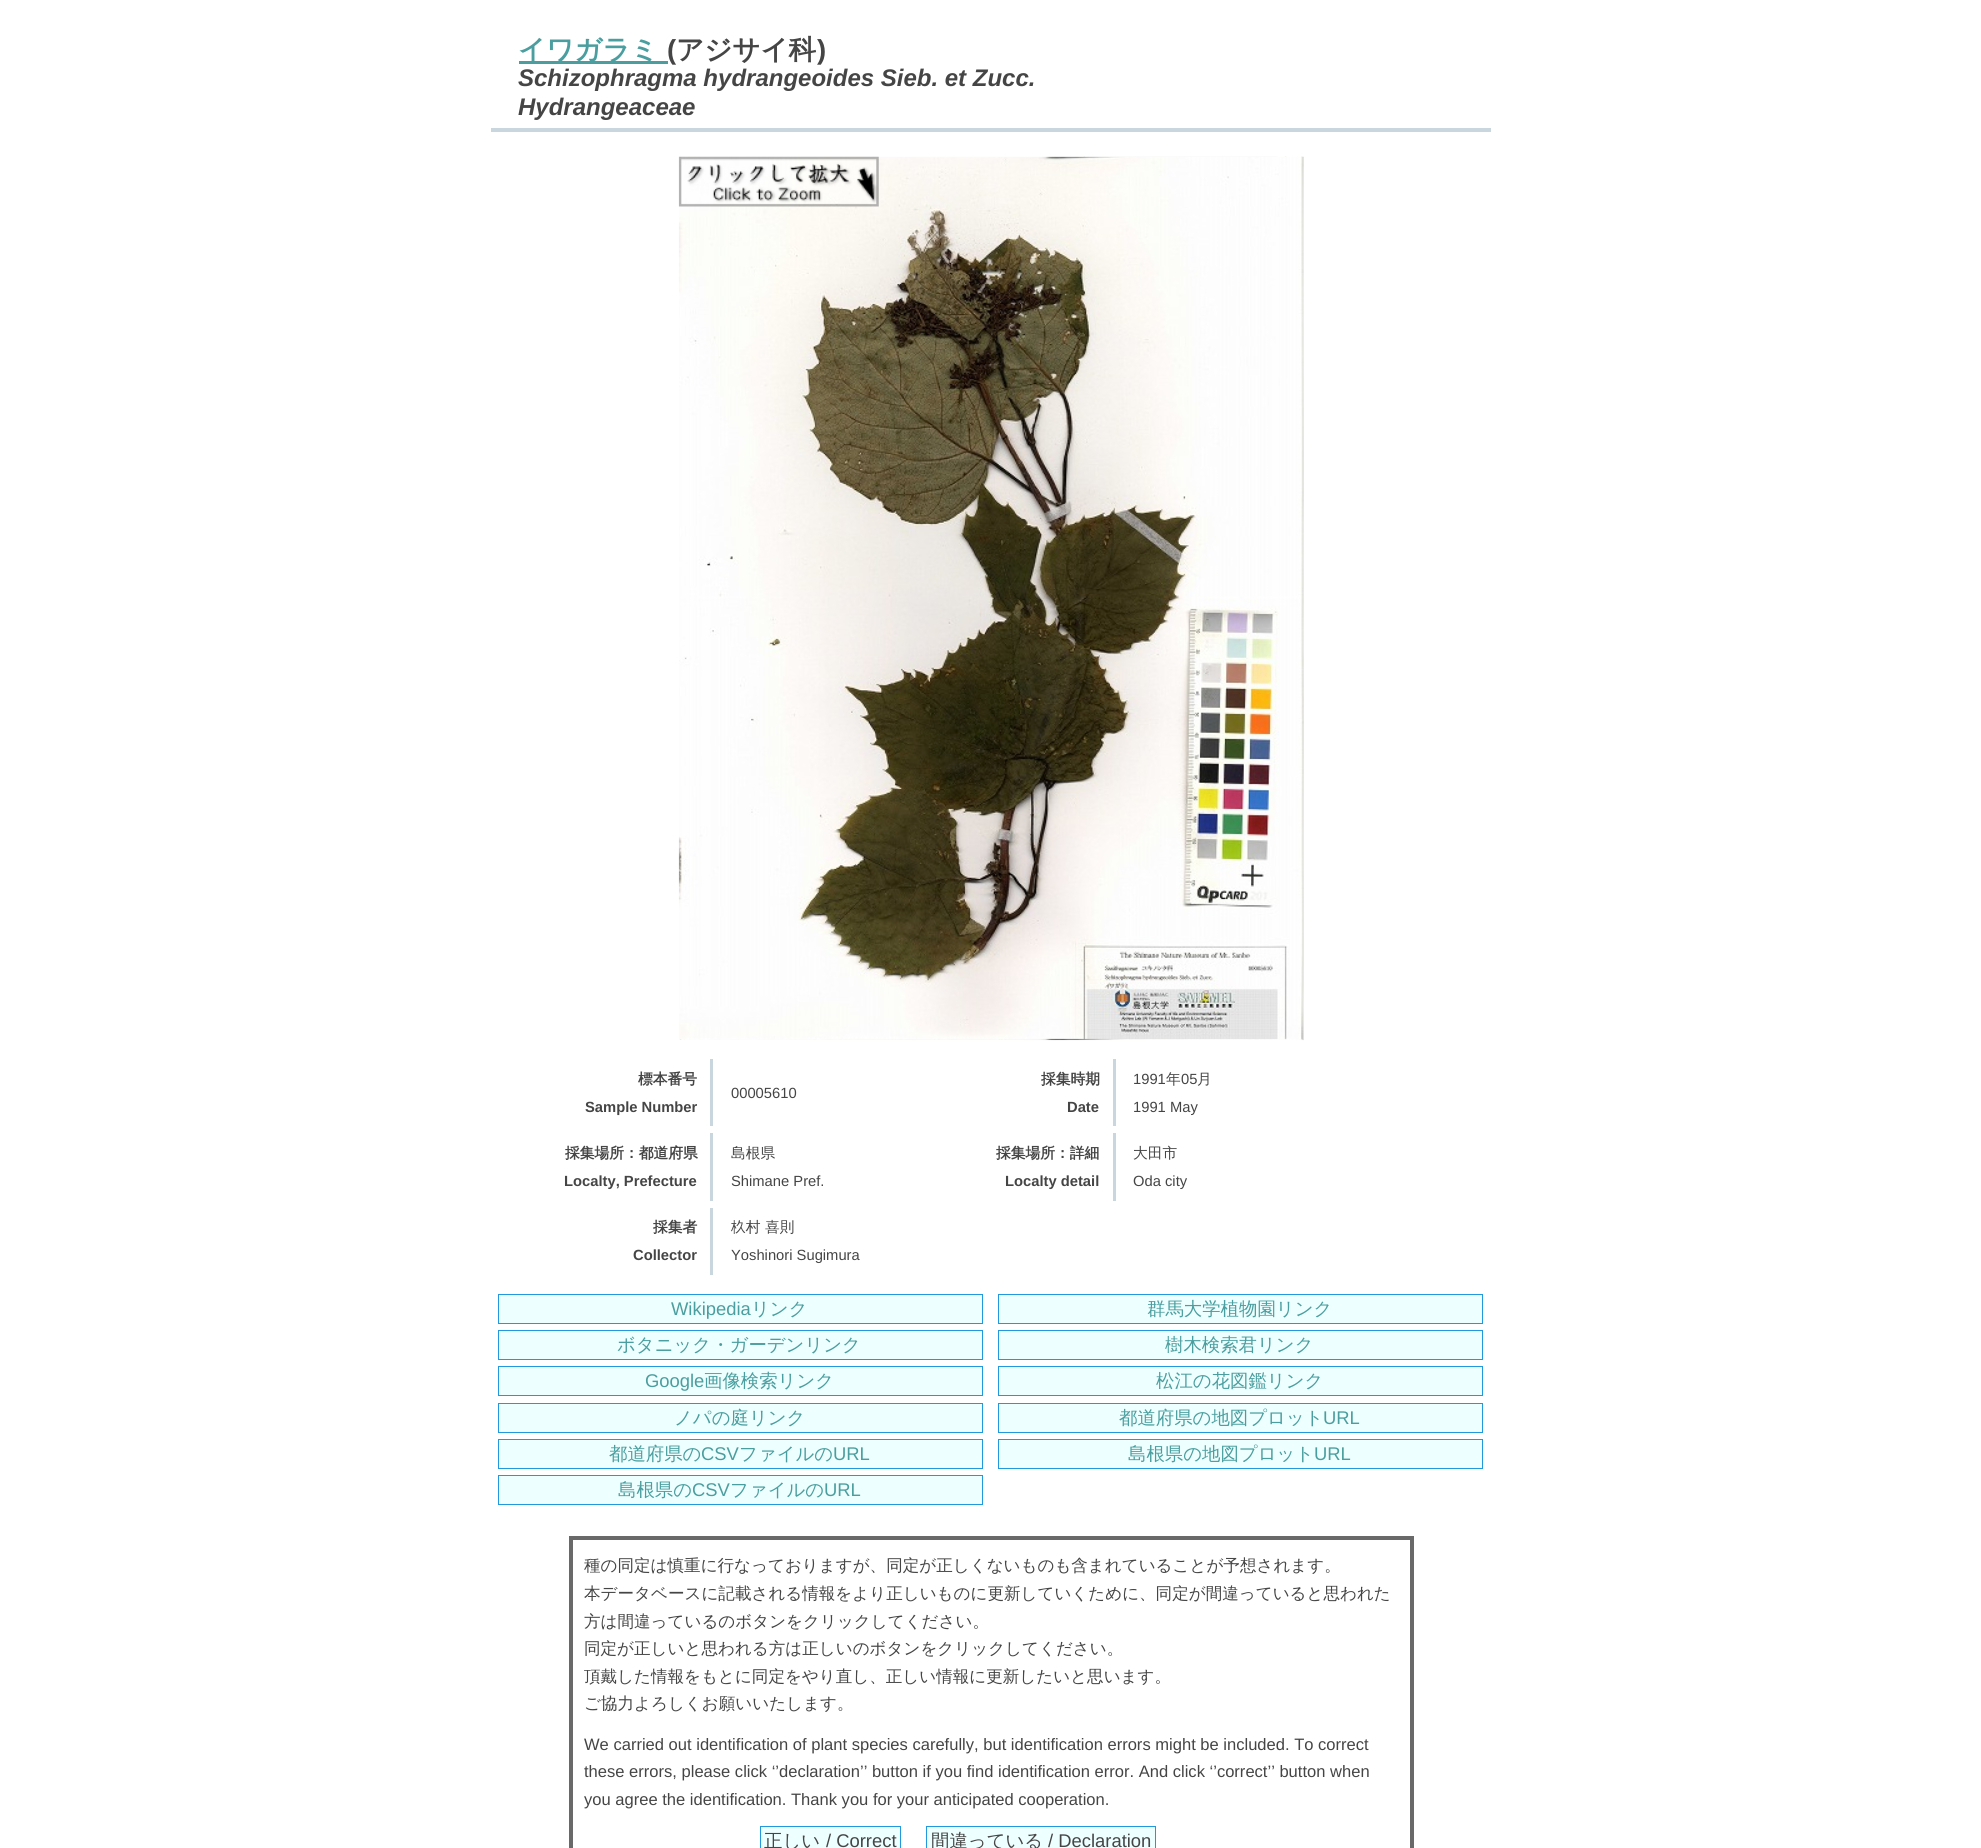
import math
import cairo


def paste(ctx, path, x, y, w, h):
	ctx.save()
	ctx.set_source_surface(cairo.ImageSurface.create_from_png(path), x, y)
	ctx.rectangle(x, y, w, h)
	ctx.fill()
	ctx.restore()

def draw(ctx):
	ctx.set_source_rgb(1, 1, 1)
	ctx.paint()
	ctx.set_source_rgb(0.792, 0.839, 0.867)
	ctx.rectangle(491, 128, 1000, 4)
	ctx.fill()
	ctx.set_source_rgb(0.294, 0.62, 0.624)
	ctx.rectangle(519, 61, 149, 3)
	ctx.fill()
	ctx.select_font_face('WenQuanYi Zen Hei', cairo.FONT_SLANT_NORMAL, cairo.FONT_WEIGHT_BOLD)
	ctx.set_font_size(27.5)
	ctx.move_to(518, 59)
	ctx.show_text('イワガラミ')
	ctx.select_font_face('Liberation Sans', cairo.FONT_SLANT_NORMAL, cairo.FONT_WEIGHT_BOLD)
	ctx.set_source_rgb(0.271, 0.271, 0.271)
	ctx.move_to(667, 59)
	ctx.show_text('(')
	ctx.select_font_face('WenQuanYi Zen Hei', cairo.FONT_SLANT_NORMAL, cairo.FONT_WEIGHT_BOLD)
	ctx.move_to(676, 59)
	ctx.show_text('アジサイ科')
	ctx.select_font_face('Liberation Sans', cairo.FONT_SLANT_NORMAL, cairo.FONT_WEIGHT_BOLD)
	ctx.move_to(817, 59)
	ctx.show_text(')')
	ctx.select_font_face('Liberation Sans', cairo.FONT_SLANT_ITALIC, cairo.FONT_WEIGHT_BOLD)
	ctx.set_font_size(24)
	ctx.move_to(518, 86)
	ctx.show_text('Schizophragma hydrangeoides Sieb. et Zucc.')
	ctx.move_to(518, 115)
	ctx.show_text('Hydrangeaceae')
	paste(ctx, 'media/1.png', 678, 156, 626, 885)
	paste(ctx, 'media/2.png', 678, 156, 201, 51)
	ctx.set_source_rgb(0.792, 0.839, 0.867)
	ctx.rectangle(710, 1059, 3, 67)
	ctx.fill()
	ctx.select_font_face('WenQuanYi Zen Hei', cairo.FONT_SLANT_NORMAL, cairo.FONT_WEIGHT_BOLD)
	ctx.set_font_size(14.75)
	ctx.set_source_rgb(0.271, 0.271, 0.271)
	ctx.move_to(638, 1084)
	ctx.show_text('標本番号')
	ctx.select_font_face('Liberation Sans', cairo.FONT_SLANT_NORMAL, cairo.FONT_WEIGHT_BOLD)
	ctx.move_to(585, 1112)
	ctx.show_text('Sample Number')
	ctx.select_font_face('Liberation Sans')
	ctx.move_to(731, 1098)
	ctx.show_text('00005610')
	ctx.set_source_rgb(0.792, 0.839, 0.867)
	ctx.rectangle(1113, 1059, 3, 67)
	ctx.fill()
	ctx.select_font_face('WenQuanYi Zen Hei', cairo.FONT_SLANT_NORMAL, cairo.FONT_WEIGHT_BOLD)
	ctx.set_source_rgb(0.271, 0.271, 0.271)
	ctx.move_to(1041, 1084)
	ctx.show_text('採集時期')
	ctx.select_font_face('Liberation Sans', cairo.FONT_SLANT_NORMAL, cairo.FONT_WEIGHT_BOLD)
	ctx.move_to(1067, 1112)
	ctx.show_text('Date')
	ctx.select_font_face('Liberation Sans')
	ctx.move_to(1133, 1084)
	ctx.show_text('1991')
	ctx.select_font_face('WenQuanYi Zen Hei Medium')
	ctx.move_to(1166, 1084)
	ctx.show_text('年')
	ctx.select_font_face('Liberation Sans')
	ctx.move_to(1181, 1084)
	ctx.show_text('05')
	ctx.select_font_face('WenQuanYi Zen Hei Medium')
	ctx.move_to(1197, 1084)
	ctx.show_text('月')
	ctx.select_font_face('Liberation Sans')
	ctx.move_to(1133, 1112)
	ctx.show_text('1991 May')
	ctx.set_source_rgb(0.792, 0.839, 0.867)
	ctx.rectangle(710, 1133, 3, 68)
	ctx.fill()
	ctx.select_font_face('WenQuanYi Zen Hei', cairo.FONT_SLANT_NORMAL, cairo.FONT_WEIGHT_BOLD)
	ctx.set_source_rgb(0.271, 0.271, 0.271)
	ctx.move_to(565, 1158)
	ctx.show_text('採集場所：都道府県')
	ctx.select_font_face('Liberation Sans', cairo.FONT_SLANT_NORMAL, cairo.FONT_WEIGHT_BOLD)
	ctx.move_to(564, 1186)
	ctx.show_text('Localty, Prefecture')
	ctx.select_font_face('WenQuanYi Zen Hei Medium')
	ctx.move_to(731, 1158)
	ctx.show_text('島根県')
	ctx.select_font_face('Liberation Sans')
	ctx.move_to(731, 1186)
	ctx.show_text('Shimane Pref.')
	ctx.set_source_rgb(0.792, 0.839, 0.867)
	ctx.rectangle(1113, 1133, 3, 68)
	ctx.fill()
	ctx.select_font_face('WenQuanYi Zen Hei', cairo.FONT_SLANT_NORMAL, cairo.FONT_WEIGHT_BOLD)
	ctx.set_source_rgb(0.271, 0.271, 0.271)
	ctx.move_to(996, 1158)
	ctx.show_text('採集場所：詳細')
	ctx.select_font_face('Liberation Sans', cairo.FONT_SLANT_NORMAL, cairo.FONT_WEIGHT_BOLD)
	ctx.move_to(1005, 1186)
	ctx.show_text('Localty detail')
	ctx.select_font_face('WenQuanYi Zen Hei Medium')
	ctx.move_to(1133, 1158)
	ctx.show_text('大田市')
	ctx.select_font_face('Liberation Sans')
	ctx.move_to(1133, 1186)
	ctx.show_text('Oda city')
	ctx.set_source_rgb(0.792, 0.839, 0.867)
	ctx.rectangle(710, 1208, 3, 67)
	ctx.fill()
	ctx.select_font_face('WenQuanYi Zen Hei', cairo.FONT_SLANT_NORMAL, cairo.FONT_WEIGHT_BOLD)
	ctx.set_source_rgb(0.271, 0.271, 0.271)
	ctx.move_to(653, 1232)
	ctx.show_text('採集者')
	ctx.select_font_face('Liberation Sans', cairo.FONT_SLANT_NORMAL, cairo.FONT_WEIGHT_BOLD)
	ctx.move_to(633, 1260)
	ctx.show_text('Collector')
	ctx.select_font_face('WenQuanYi Zen Hei Medium')
	ctx.move_to(731, 1232)
	ctx.show_text('杦村 喜則')
	ctx.select_font_face('Liberation Sans')
	ctx.move_to(731, 1260)
	ctx.show_text('Yoshinori Sugimura')
	ctx.set_source_rgb(0.933, 1, 1)
	ctx.rectangle(498.5, 1294.5, 484, 29)
	ctx.fill_preserve()
	ctx.set_source_rgb(0.133, 0.6, 0.867)
	ctx.set_line_width(1)
	ctx.stroke()
	ctx.set_font_size(18.4)
	ctx.set_source_rgb(0.294, 0.62, 0.624)
	ctx.move_to(671, 1315)
	ctx.show_text('Wikipedia')
	ctx.select_font_face('WenQuanYi Zen Hei Medium')
	ctx.move_to(751, 1315)
	ctx.show_text('リンク')
	ctx.set_source_rgb(0.933, 1, 1)
	ctx.rectangle(998.5, 1294.5, 484, 29)
	ctx.fill_preserve()
	ctx.set_source_rgb(0.133, 0.6, 0.867)
	ctx.stroke()
	ctx.set_source_rgb(0.294, 0.62, 0.624)
	ctx.move_to(1147, 1315)
	ctx.show_text('群馬大学植物園リンク')
	ctx.set_source_rgb(0.933, 1, 1)
	ctx.rectangle(498.5, 1330.5, 484, 29)
	ctx.fill_preserve()
	ctx.set_source_rgb(0.133, 0.6, 0.867)
	ctx.stroke()
	ctx.set_source_rgb(0.294, 0.62, 0.624)
	ctx.move_to(617, 1351)
	ctx.show_text('ボタニック・ガーデンリンク')
	ctx.set_source_rgb(0.933, 1, 1)
	ctx.rectangle(998.5, 1330.5, 484, 29)
	ctx.fill_preserve()
	ctx.set_source_rgb(0.133, 0.6, 0.867)
	ctx.stroke()
	ctx.set_source_rgb(0.294, 0.62, 0.624)
	ctx.move_to(1165, 1351)
	ctx.show_text('樹木検索君リンク')
	ctx.set_source_rgb(0.933, 1, 1)
	ctx.rectangle(498.5, 1366.5, 484, 29)
	ctx.fill_preserve()
	ctx.set_source_rgb(0.133, 0.6, 0.867)
	ctx.stroke()
	ctx.select_font_face('Liberation Sans')
	ctx.set_source_rgb(0.294, 0.62, 0.624)
	ctx.move_to(645, 1387)
	ctx.show_text('Google')
	ctx.select_font_face('WenQuanYi Zen Hei Medium')
	ctx.move_to(704, 1387)
	ctx.show_text('画像検索リンク')
	ctx.set_source_rgb(0.933, 1, 1)
	ctx.rectangle(998.5, 1366.5, 484, 29)
	ctx.fill_preserve()
	ctx.set_source_rgb(0.133, 0.6, 0.867)
	ctx.stroke()
	ctx.set_source_rgb(0.294, 0.62, 0.624)
	ctx.move_to(1156, 1387)
	ctx.show_text('松江の花図鑑リンク')
	ctx.set_source_rgb(0.933, 1, 1)
	ctx.rectangle(498.5, 1403.5, 484, 29)
	ctx.fill_preserve()
	ctx.set_source_rgb(0.133, 0.6, 0.867)
	ctx.stroke()
	ctx.set_source_rgb(0.294, 0.62, 0.624)
	ctx.move_to(674, 1424)
	ctx.show_text('ノパの庭リンク')
	ctx.set_source_rgb(0.933, 1, 1)
	ctx.rectangle(998.5, 1403.5, 484, 29)
	ctx.fill_preserve()
	ctx.set_source_rgb(0.133, 0.6, 0.867)
	ctx.stroke()
	ctx.set_source_rgb(0.294, 0.62, 0.624)
	ctx.move_to(1119, 1424)
	ctx.show_text('都道府県の地図プロット')
	ctx.select_font_face('Liberation Sans')
	ctx.move_to(1323, 1424)
	ctx.show_text('URL')
	ctx.set_source_rgb(0.933, 1, 1)
	ctx.rectangle(498.5, 1439.5, 484, 29)
	ctx.fill_preserve()
	ctx.set_source_rgb(0.133, 0.6, 0.867)
	ctx.stroke()
	ctx.select_font_face('WenQuanYi Zen Hei Medium')
	ctx.set_source_rgb(0.294, 0.62, 0.624)
	ctx.move_to(609, 1460)
	ctx.show_text('都道府県の')
	ctx.select_font_face('Liberation Sans')
	ctx.move_to(701, 1460)
	ctx.show_text('CSV')
	ctx.select_font_face('WenQuanYi Zen Hei Medium')
	ctx.move_to(739, 1460)
	ctx.show_text('ファイルの')
	ctx.select_font_face('Liberation Sans')
	ctx.move_to(833, 1460)
	ctx.show_text('URL')
	ctx.set_source_rgb(0.933, 1, 1)
	ctx.rectangle(998.5, 1439.5, 484, 29)
	ctx.fill_preserve()
	ctx.set_source_rgb(0.133, 0.6, 0.867)
	ctx.stroke()
	ctx.select_font_face('WenQuanYi Zen Hei Medium')
	ctx.set_source_rgb(0.294, 0.62, 0.624)
	ctx.move_to(1128, 1460)
	ctx.show_text('島根県の地図プロット')
	ctx.select_font_face('Liberation Sans')
	ctx.move_to(1314, 1460)
	ctx.show_text('URL')
	ctx.set_source_rgb(0.933, 1, 1)
	ctx.rectangle(498.5, 1475.5, 484, 29)
	ctx.fill_preserve()
	ctx.set_source_rgb(0.133, 0.6, 0.867)
	ctx.stroke()
	ctx.select_font_face('WenQuanYi Zen Hei Medium')
	ctx.set_source_rgb(0.294, 0.62, 0.624)
	ctx.move_to(618, 1496)
	ctx.show_text('島根県の')
	ctx.select_font_face('Liberation Sans')
	ctx.move_to(692, 1496)
	ctx.show_text('CSV')
	ctx.select_font_face('WenQuanYi Zen Hei Medium')
	ctx.move_to(730, 1496)
	ctx.show_text('ファイルの')
	ctx.select_font_face('Liberation Sans')
	ctx.move_to(824, 1496)
	ctx.show_text('URL')
	ctx.rectangle(571, 1538, 841, 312)
	ctx.set_source_rgb(0.412, 0.412, 0.412)
	ctx.set_line_width(4)
	ctx.stroke()
	ctx.select_font_face('WenQuanYi Zen Hei Medium')
	ctx.set_font_size(16.55)
	ctx.set_source_rgb(0.271, 0.271, 0.271)
	for x, y, s in [
		(584, 1571, '種の同定は慎重に行なっておりますが、同定が正しくないものも含まれていることが予想されます。'),
		(584, 1599, '本データベースに記載される情報をより正しいものに更新していくために、同定が間違っていると思われた'),
		(584, 1627, '方は間違っているのボタンをクリックしてください。'),
		(584, 1654, '同定が正しいと思われる方は正しいのボタンをクリックしてください。'),
		(584, 1682, '頂戴した情報をもとに同定をやり直し、正しい情報に更新したいと思います。'),
		(584, 1709, 'ご協力よろしくお願いいたします。'),
	]:
		ctx.move_to(x, y)
		ctx.show_text(s)
	ctx.select_font_face('Liberation Sans')
	for x, y, s in [
		(584, 1750, 'We carried out identification of plant species carefully, but identification errors might be included. To correct'),
		(584, 1777, 'these errors, please click ‘’declaration’’ button if you find identification error. And click ‘’correct’’ button when'),
		(584, 1805, 'you agree the identification. Thank you for your anticipated cooperation.'),
	]:
		ctx.move_to(x, y)
		ctx.show_text(s)
	ctx.set_source_rgb(0.933, 1, 1)
	ctx.rectangle(760.5, 1826.5, 140, 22)
	ctx.fill_preserve()
	ctx.set_source_rgb(0.133, 0.6, 0.867)
	ctx.set_line_width(1)
	ctx.stroke()
	ctx.select_font_face('WenQuanYi Zen Hei Medium')
	ctx.set_font_size(18.4)
	ctx.set_source_rgb(0.271, 0.271, 0.271)
	ctx.move_to(764, 1847)
	ctx.show_text('正しい')
	ctx.select_font_face('Liberation Sans')
	ctx.move_to(826, 1847)
	ctx.show_text('/ Correct')
	ctx.set_source_rgb(0.933, 1, 1)
	ctx.rectangle(926.5, 1826.5, 229, 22)
	ctx.fill_preserve()
	ctx.set_source_rgb(0.133, 0.6, 0.867)
	ctx.stroke()
	ctx.select_font_face('WenQuanYi Zen Hei Medium')
	ctx.set_source_rgb(0.271, 0.271, 0.271)
	ctx.move_to(931, 1847)
	ctx.show_text('間違っている')
	ctx.select_font_face('Liberation Sans')
	ctx.move_to(1048, 1847)
	ctx.show_text('/ Declaration')


surface = cairo.ImageSurface(cairo.FORMAT_RGB24, 1981, 1848)
ctx = cairo.Context(surface)
options = cairo.FontOptions()
options.set_hint_metrics(cairo.HINT_METRICS_OFF)
options.set_hint_style(cairo.HINT_STYLE_NONE)
ctx.set_font_options(options)
ctx.set_miter_limit(4)
draw(ctx)
surface.write_to_png('image.png')
